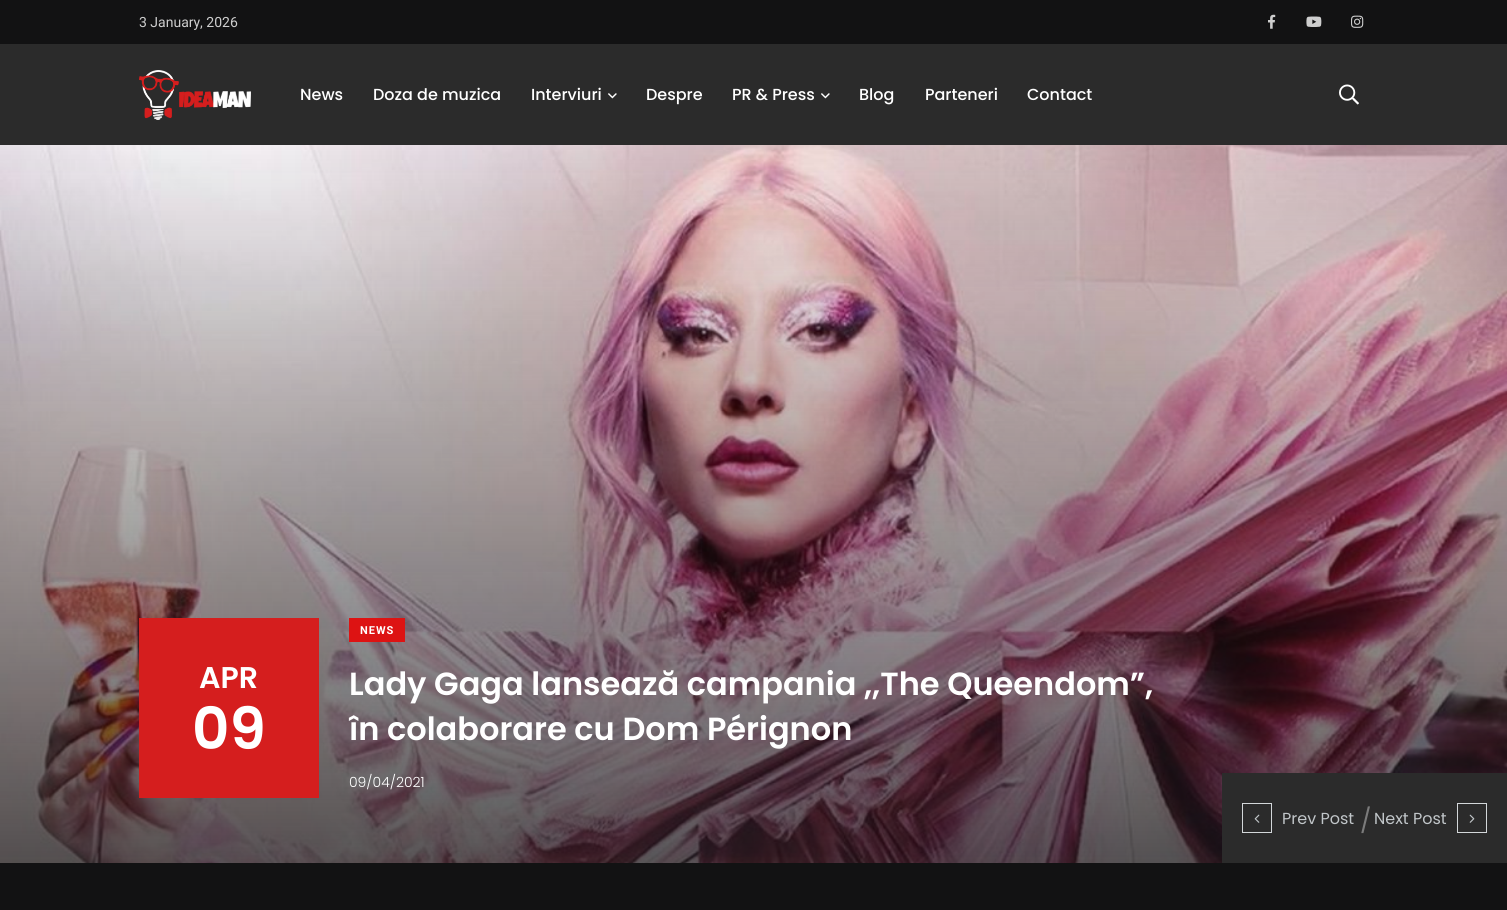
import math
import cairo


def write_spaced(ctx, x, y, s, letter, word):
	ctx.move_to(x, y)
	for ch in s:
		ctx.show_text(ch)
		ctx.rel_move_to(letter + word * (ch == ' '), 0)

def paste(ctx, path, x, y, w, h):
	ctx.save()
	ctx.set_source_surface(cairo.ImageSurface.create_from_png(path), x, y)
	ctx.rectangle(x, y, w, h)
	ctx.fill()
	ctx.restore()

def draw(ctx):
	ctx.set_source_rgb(0.071, 0.071, 0.075)
	ctx.paint()
	ctx.select_font_face('Roboto')
	ctx.set_font_size(14)
	ctx.set_source_rgb(0.808, 0.808, 0.808)
	ctx.move_to(139, 27)
	ctx.show_text('3 January, 2026')
	paste(ctx, 'media/1.png', 1268, 14, 8, 15)
	paste(ctx, 'media/2.png', 1306, 16, 16, 11)
	paste(ctx, 'media/3.png', 1351, 15, 13, 13)
	ctx.set_source_rgb(0.169, 0.169, 0.169)
	ctx.rectangle(0, 44, 1507, 101)
	ctx.fill()
	paste(ctx, 'media/4.png', 139, 70, 112, 50)
	ctx.select_font_face('Poppins Medium')
	ctx.set_font_size(16)
	ctx.set_source_rgb(1, 1, 1)
	for x, y, s in [
		(300, 100, 'News'),
		(373, 100, 'Doza de muzica'),
		(531, 100, 'Interviuri'),
	]:
		ctx.move_to(x, y)
		ctx.show_text(s)
	paste(ctx, 'media/5.png', 608, 93, 9, 6)
	ctx.move_to(646, 100)
	ctx.show_text('Despre')
	ctx.move_to(732, 100)
	ctx.show_text('PR & Press')
	paste(ctx, 'media/5.png', 821, 93, 9, 6)
	for x, y, s in [
		(859, 100, 'Blog'),
		(925, 100, 'Parteneri'),
		(1027, 100, 'Contact'),
	]:
		ctx.move_to(x, y)
		ctx.show_text(s)
	paste(ctx, 'media/6.png', 1339, 84, 20, 21)
	paste(ctx, 'media/7.png', 0, 145, 1507, 718)
	ctx.set_source_rgb(0.835, 0.118, 0.118)
	ctx.rectangle(139, 618, 180, 180)
	ctx.fill()
	ctx.select_font_face('Poppins SemiBold')
	ctx.set_font_size(30)
	ctx.set_source_rgb(1, 1, 1)
	ctx.move_to(199, 688)
	ctx.show_text('APR')
	ctx.set_font_size(58)
	ctx.move_to(192, 749)
	ctx.show_text('09')
	ctx.set_source_rgb(0.867, 0.075, 0.075)
	ctx.rectangle(349, 618, 56, 24)
	ctx.fill()
	ctx.select_font_face('Roboto', cairo.FONT_SLANT_NORMAL, cairo.FONT_WEIGHT_BOLD)
	ctx.set_font_size(11)
	ctx.set_source_rgb(1, 1, 1)
	write_spaced(ctx, 360, 634, 'NEWS', 1, 0)
	ctx.select_font_face('Poppins SemiBold')
	ctx.set_font_size(32)
	ctx.move_to(349, 695)
	ctx.show_text('Lady Gaga lansează campania ,,The Queendom”,')
	ctx.move_to(349, 740)
	ctx.show_text('în colaborare cu Dom Pérignon')
	ctx.select_font_face('Poppins Light')
	ctx.set_font_size(14)
	ctx.move_to(349, 787)
	ctx.show_text('09/04/2021')
	ctx.set_source_rgb(0.169, 0.169, 0.169)
	ctx.rectangle(1222, 773, 285, 90)
	ctx.fill()
	ctx.rectangle(1242.5, 803.5, 29, 29)
	ctx.set_source_rgb(0.827, 0.843, 0.855)
	ctx.set_line_width(1)
	ctx.stroke()
	paste(ctx, 'media/8.png', 1254, 814, 6, 9)
	ctx.select_font_face('Poppins')
	ctx.set_font_size(16)
	ctx.set_source_rgb(0.757, 0.776, 0.788)
	ctx.move_to(1282, 824)
	ctx.show_text('Prev Post')
	ctx.set_font_size(24)
	ctx.set_source_rgb(0.482, 0.482, 0.482)
	ctx.move_to(1360, 829)
	ctx.show_text('/')
	ctx.set_font_size(16)
	ctx.set_source_rgb(0.757, 0.776, 0.788)
	ctx.move_to(1374, 824)
	ctx.show_text('Next Post')
	ctx.rectangle(1457.5, 803.5, 29, 29)
	ctx.set_source_rgb(0.827, 0.843, 0.855)
	ctx.stroke()
	paste(ctx, 'media/9.png', 1469, 814, 6, 9)


surface = cairo.ImageSurface(cairo.FORMAT_RGB24, 1507, 910)
ctx = cairo.Context(surface)
options = cairo.FontOptions()
options.set_hint_metrics(cairo.HINT_METRICS_OFF)
options.set_hint_style(cairo.HINT_STYLE_NONE)
ctx.set_font_options(options)
ctx.set_miter_limit(4)
draw(ctx)
surface.write_to_png('image.png')
